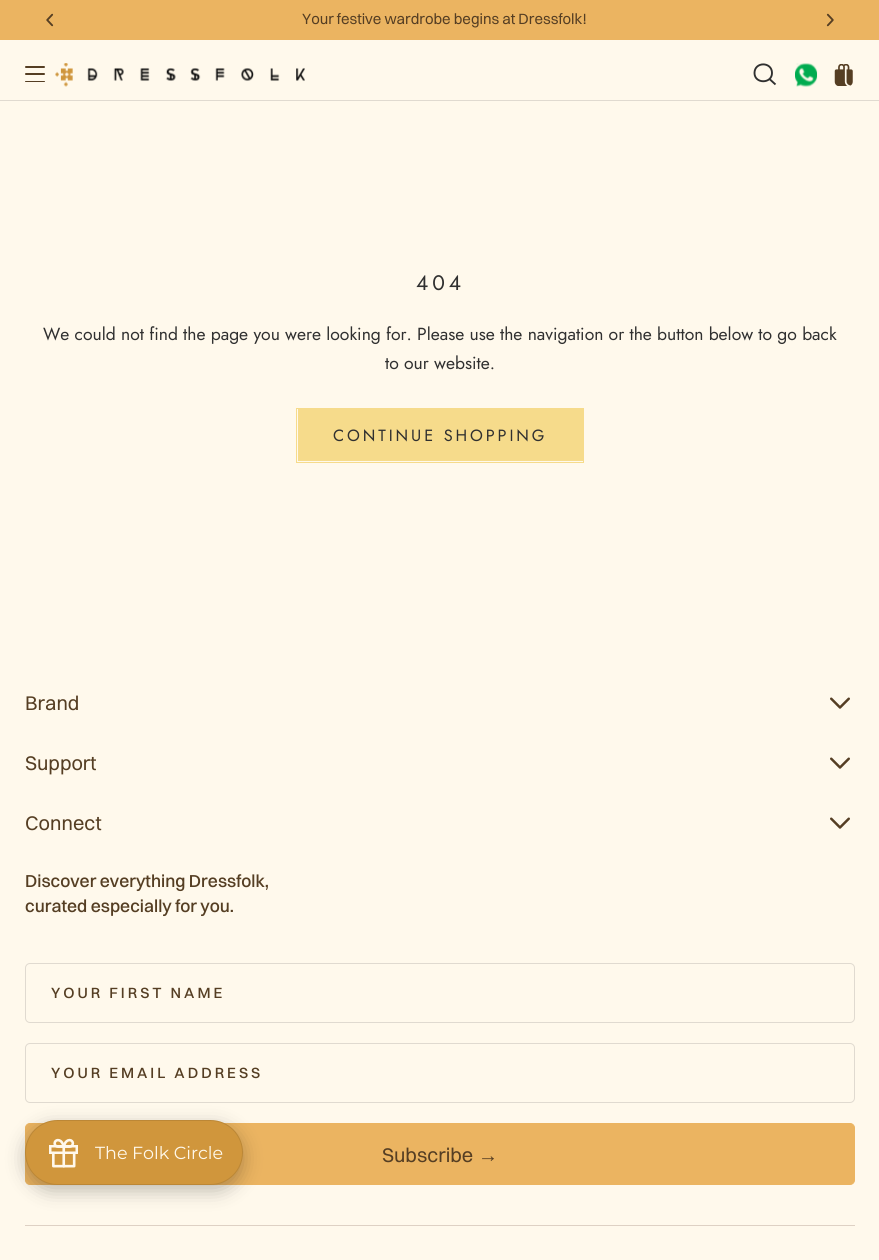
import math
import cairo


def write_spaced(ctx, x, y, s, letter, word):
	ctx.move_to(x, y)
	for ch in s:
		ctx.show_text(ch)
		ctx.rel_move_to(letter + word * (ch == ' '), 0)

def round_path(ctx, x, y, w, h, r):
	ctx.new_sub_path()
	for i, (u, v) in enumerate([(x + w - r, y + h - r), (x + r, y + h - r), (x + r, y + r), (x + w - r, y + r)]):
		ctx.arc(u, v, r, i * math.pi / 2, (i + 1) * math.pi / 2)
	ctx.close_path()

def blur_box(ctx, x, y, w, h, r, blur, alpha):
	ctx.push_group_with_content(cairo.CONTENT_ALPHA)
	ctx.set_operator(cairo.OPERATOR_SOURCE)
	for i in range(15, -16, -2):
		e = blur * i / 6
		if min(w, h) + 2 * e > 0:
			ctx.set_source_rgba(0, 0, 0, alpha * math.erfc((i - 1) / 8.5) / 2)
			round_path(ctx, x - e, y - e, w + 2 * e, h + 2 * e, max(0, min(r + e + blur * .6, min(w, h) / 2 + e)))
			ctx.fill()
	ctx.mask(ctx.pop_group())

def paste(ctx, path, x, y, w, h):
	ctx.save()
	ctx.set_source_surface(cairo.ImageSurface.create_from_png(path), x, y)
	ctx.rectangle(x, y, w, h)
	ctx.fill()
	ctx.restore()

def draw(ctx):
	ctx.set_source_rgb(1, 0.973, 0.925)
	ctx.paint()
	ctx.set_source_rgb(0.918, 0.706, 0.38)
	ctx.rectangle(0, 0, 879, 40)
	ctx.fill()
	paste(ctx, 'media/1.png', 46, 13, 8, 14)
	ctx.select_font_face('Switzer')
	ctx.set_font_size(15)
	ctx.set_source_rgb(0.333, 0.243, 0.137)
	ctx.move_to(302, 24)
	ctx.show_text('Your festive wardrobe begins at Dressfolk!')
	paste(ctx, 'media/2.png', 826, 13, 8, 14)
	ctx.set_source_rgb(0.878, 0.855, 0.816)
	ctx.rectangle(0, 100, 879, 1)
	ctx.fill()
	ctx.set_source_rgb(0.333, 0.243, 0.137)
	round_path(ctx, 25, 66, 20, 2, 1)
	ctx.fill()
	round_path(ctx, 25, 73, 20, 2, 1)
	ctx.fill()
	round_path(ctx, 25, 81, 20, 1, 0.5)
	ctx.fill()
	paste(ctx, 'media/3.png', 55, 63, 250, 24)
	ctx.new_path()
	ctx.move_to(772, 73)
	ctx.curve_to(772, 84, 754.5, 84, 754.5, 73)
	ctx.curve_to(754.5, 61.5, 772, 61.5, 772, 73)
	ctx.close_path()
	ctx.move_to(775.5, 84.5)
	ctx.line_to(769.5, 79)
	ctx.set_source_rgb(0.188, 0.188, 0.188)
	ctx.set_line_width(1.9)
	ctx.stroke()
	paste(ctx, 'media/4.png', 795, 63, 23, 24)
	paste(ctx, 'media/5.png', 834, 64, 19, 22)
	ctx.select_font_face('Jost')
	ctx.set_font_size(21)
	write_spaced(ctx, 416, 290, '404', 4, 0)
	ctx.set_font_size(17.5)
	ctx.move_to(43, 340)
	ctx.show_text('We could not find the page you were looking for. Please use the navigation or the button below to go back')
	ctx.move_to(385, 369)
	ctx.show_text('to our website.')
	ctx.set_source_rgb(0.961, 0.859, 0.545)
	ctx.rectangle(298, 409, 285, 52)
	ctx.fill()
	ctx.rectangle(296.5, 408.5, 287, 54)
	ctx.set_line_width(1)
	ctx.stroke()
	ctx.set_font_size(16.25)
	ctx.set_source_rgb(0.188, 0.188, 0.188)
	write_spaced(ctx, 333, 441, 'CONTINUE SHOPPING', 2.9, 0)
	ctx.select_font_face('Switzer')
	ctx.set_font_size(20)
	ctx.set_source_rgb(0.333, 0.243, 0.137)
	ctx.move_to(25, 710)
	ctx.show_text('Brand')
	paste(ctx, 'media/6.png', 830, 697, 20, 12)
	ctx.move_to(25, 770)
	ctx.show_text('Support')
	paste(ctx, 'media/6.png', 830, 757, 20, 12)
	ctx.move_to(25, 830)
	ctx.show_text('Connect')
	paste(ctx, 'media/6.png', 830, 817, 20, 12)
	ctx.select_font_face('Switzer Medium')
	ctx.set_font_size(17.5)
	ctx.move_to(25, 887)
	ctx.show_text('Discover everything Dressfolk,')
	ctx.move_to(25, 912)
	ctx.show_text('curated especially for you.')
	ctx.set_source_rgb(0.871, 0.82, 0.769)
	ctx.rectangle(25, 1225, 830, 1)
	ctx.fill()
	round_path(ctx, 25.5, 963.5, 829, 59, 4.5)
	ctx.set_source_rgb(0.878, 0.855, 0.816)
	ctx.stroke()
	ctx.set_font_size(15)
	ctx.set_source_rgb(0.333, 0.243, 0.137)
	write_spaced(ctx, 51, 998, 'YOUR FIRST NAME', 3, 0)
	round_path(ctx, 25.5, 1043.5, 829, 59, 4.5)
	ctx.set_source_rgb(0.878, 0.855, 0.816)
	ctx.stroke()
	ctx.set_source_rgb(0.333, 0.243, 0.137)
	write_spaced(ctx, 51, 1078, 'YOUR EMAIL ADDRESS', 3, 0)
	ctx.set_source_rgb(0.918, 0.706, 0.38)
	round_path(ctx, 25.5, 1123.5, 829, 61, 4.5)
	ctx.fill_preserve()
	ctx.stroke()
	ctx.select_font_face('Switzer')
	ctx.set_font_size(20)
	ctx.set_source_rgb(0.333, 0.243, 0.137)
	ctx.move_to(382, 1162)
	ctx.show_text('Subscribe')
	ctx.select_font_face('Liberation Serif')
	ctx.move_to(478, 1162)
	ctx.show_text('→')
	ctx.set_source_rgb(0, 0, 0)
	blur_box(ctx, 25, 1126, 218, 65, 32.5, 9.5, 0.25)
	ctx.set_source_rgb(0.816, 0.588, 0.235)
	round_path(ctx, 25, 1120, 218, 65, 32.5)
	ctx.fill()
	round_path(ctx, 25.5, 1120.5, 217, 64, 32)
	ctx.set_source_rgba(0, 0, 0, 0.1)
	ctx.stroke()
	paste(ctx, 'media/7.png', 49, 1138, 29, 30)
	ctx.select_font_face('Montserrat')
	ctx.set_font_size(17.5)
	ctx.set_source_rgb(1, 0.973, 0.925)
	ctx.move_to(95, 1159)
	ctx.show_text('The Folk Circle')


surface = cairo.ImageSurface(cairo.FORMAT_RGB24, 879, 1260)
ctx = cairo.Context(surface)
options = cairo.FontOptions()
options.set_hint_metrics(cairo.HINT_METRICS_OFF)
options.set_hint_style(cairo.HINT_STYLE_NONE)
ctx.set_font_options(options)
ctx.set_miter_limit(4)
draw(ctx)
surface.write_to_png('image.png')
